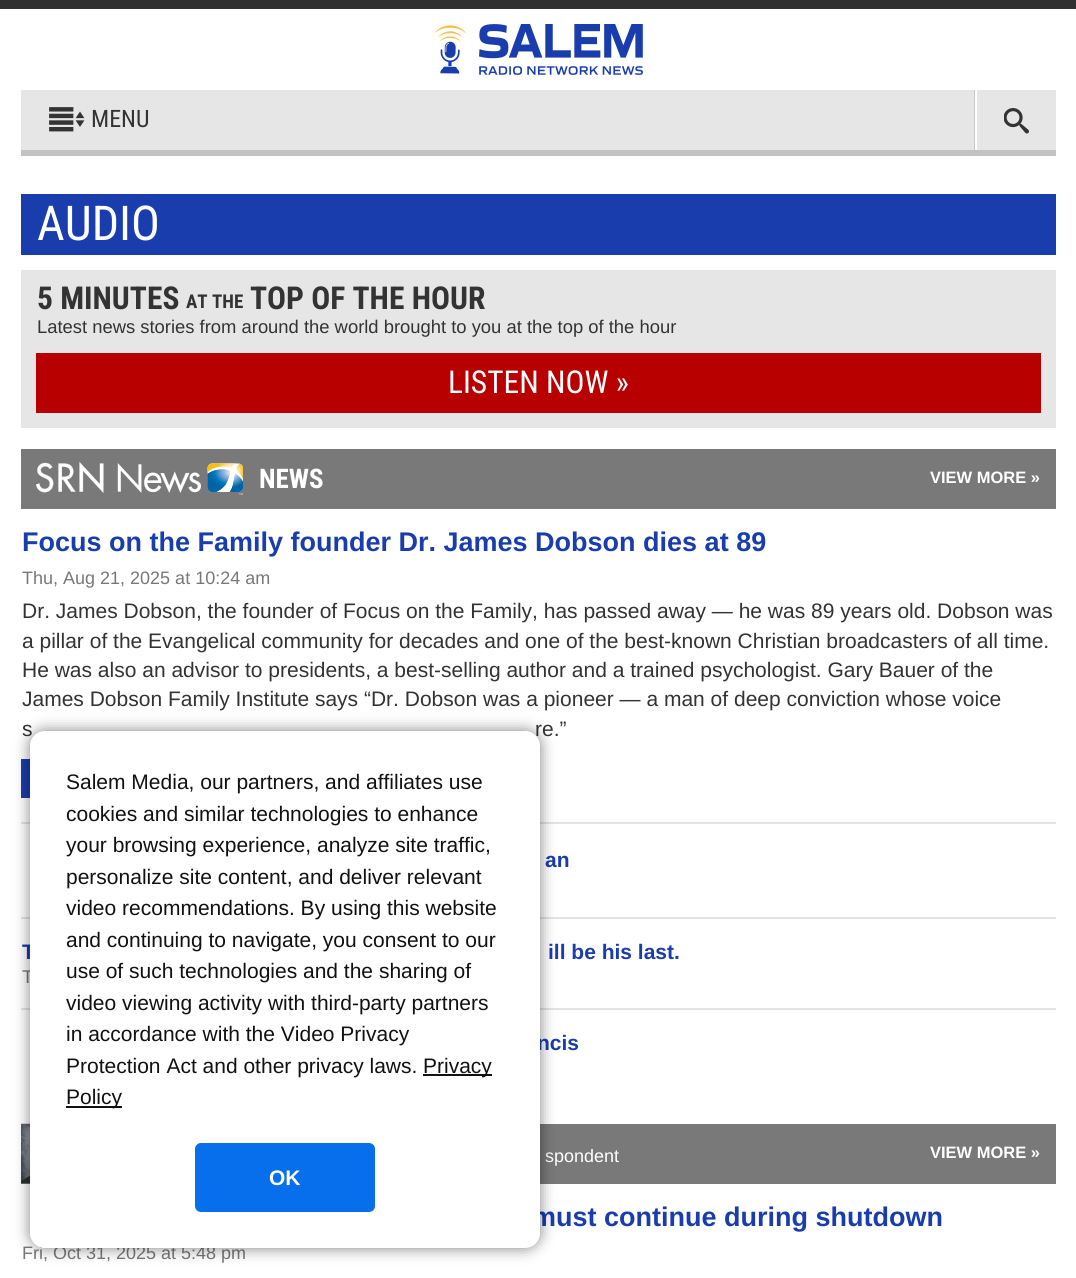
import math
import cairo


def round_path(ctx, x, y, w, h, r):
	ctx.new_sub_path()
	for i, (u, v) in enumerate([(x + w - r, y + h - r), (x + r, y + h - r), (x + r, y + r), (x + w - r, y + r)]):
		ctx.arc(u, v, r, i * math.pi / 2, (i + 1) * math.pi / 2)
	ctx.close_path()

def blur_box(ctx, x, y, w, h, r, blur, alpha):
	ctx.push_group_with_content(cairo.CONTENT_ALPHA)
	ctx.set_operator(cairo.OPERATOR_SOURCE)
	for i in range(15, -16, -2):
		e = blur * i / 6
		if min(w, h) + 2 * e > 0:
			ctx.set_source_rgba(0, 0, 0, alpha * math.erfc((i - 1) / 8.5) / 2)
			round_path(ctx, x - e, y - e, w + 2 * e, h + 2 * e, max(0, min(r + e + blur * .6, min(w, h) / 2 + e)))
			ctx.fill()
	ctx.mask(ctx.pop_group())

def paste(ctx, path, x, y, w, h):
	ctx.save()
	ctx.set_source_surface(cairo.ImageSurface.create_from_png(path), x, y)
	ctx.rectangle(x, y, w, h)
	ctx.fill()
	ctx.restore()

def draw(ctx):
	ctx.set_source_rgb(1, 1, 1)
	ctx.paint()
	ctx.set_source_rgb(0.188, 0.188, 0.188)
	ctx.rectangle(0, 0, 1076, 9)
	ctx.fill()
	paste(ctx, 'media/1.png', 434, 24, 209, 51)
	ctx.set_source_rgb(0.902, 0.902, 0.902)
	ctx.rectangle(21, 90, 1035, 60)
	ctx.fill()
	ctx.set_source_rgb(0.765, 0.765, 0.765)
	ctx.rectangle(21, 150, 1035, 6)
	ctx.fill()
	paste(ctx, 'media/2.png', 49, 107, 36, 25)
	ctx.select_font_face('Roboto Condensed')
	ctx.set_font_size(24)
	ctx.set_source_rgb(0.2, 0.2, 0.2)
	ctx.move_to(91, 127)
	ctx.show_text('MENU')
	ctx.set_source_rgb(0.792, 0.792, 0.792)
	ctx.rectangle(974, 90, 1, 60)
	ctx.fill()
	ctx.set_source_rgb(1, 1, 1)
	ctx.rectangle(975, 90, 2, 60)
	ctx.fill()
	paste(ctx, 'media/3.png', 1004, 108, 25, 26)
	ctx.set_source_rgb(0.102, 0.239, 0.682)
	ctx.rectangle(21, 194, 1035, 61)
	ctx.fill()
	ctx.set_font_size(48)
	ctx.set_source_rgb(1, 1, 1)
	ctx.move_to(37, 240)
	ctx.show_text('AUDIO')
	ctx.set_source_rgb(0.902, 0.902, 0.902)
	ctx.rectangle(21, 270, 1035, 158)
	ctx.fill()
	ctx.select_font_face('Roboto Condensed', cairo.FONT_SLANT_NORMAL, cairo.FONT_WEIGHT_BOLD)
	ctx.set_font_size(31.5)
	ctx.set_source_rgb(0.2, 0.2, 0.2)
	ctx.move_to(37, 309)
	ctx.show_text('5 MINUTES')
	ctx.set_font_size(19)
	ctx.move_to(186, 308)
	ctx.show_text('AT THE')
	ctx.set_font_size(31.5)
	ctx.move_to(250, 309)
	ctx.show_text('TOP OF THE HOUR')
	ctx.select_font_face('Liberation Sans')
	ctx.set_font_size(18.4)
	ctx.move_to(37, 333)
	ctx.show_text('Latest news stories from around the world brought to you at the top of the hour')
	ctx.set_source_rgb(0.722, 0, 0)
	ctx.rectangle(36, 353, 1005, 60)
	ctx.fill()
	ctx.select_font_face('Roboto Condensed')
	ctx.set_font_size(31.5)
	ctx.set_source_rgb(1, 1, 1)
	ctx.move_to(448, 393)
	ctx.show_text('LISTEN NOW »')
	ctx.set_source_rgb(0.475, 0.475, 0.475)
	ctx.rectangle(21, 449, 1035, 60)
	ctx.fill()
	paste(ctx, 'media/4.png', 36, 462, 207, 33)
	ctx.select_font_face('Roboto Condensed', cairo.FONT_SLANT_NORMAL, cairo.FONT_WEIGHT_BOLD)
	ctx.set_font_size(27)
	ctx.set_source_rgb(1, 1, 1)
	ctx.move_to(259, 488)
	ctx.show_text('NEWS')
	ctx.select_font_face('Liberation Sans', cairo.FONT_SLANT_NORMAL, cairo.FONT_WEIGHT_BOLD)
	ctx.set_font_size(16.5)
	ctx.move_to(930, 483)
	ctx.show_text('VIEW MORE »')
	ctx.set_source_rgb(0.894, 0.894, 0.894)
	ctx.rectangle(21, 822, 1035, 2)
	ctx.fill()
	ctx.set_font_size(27)
	ctx.set_source_rgb(0.102, 0.239, 0.682)
	ctx.move_to(22, 551)
	ctx.show_text('Focus on the Family founder Dr. James Dobson dies at 89')
	ctx.select_font_face('Liberation Sans')
	ctx.set_font_size(18)
	ctx.set_source_rgb(0.471, 0.471, 0.471)
	ctx.move_to(22, 584)
	ctx.show_text('Thu, Aug 21, 2025 at 10:24 am')
	ctx.set_font_size(21)
	ctx.set_source_rgb(0.2, 0.2, 0.2)
	for x, y, s in [
		(22, 618, 'Dr. James Dobson, the founder of Focus on the Family, has passed away — he was 89 years old. Dobson was'),
		(22, 648, 'a pillar of the Evangelical community for decades and one of the best-known Christian broadcasters of all time.'),
		(22, 677, 'He was also an advisor to presidents, a best-selling author and a trained psychologist. Gary Bauer of the'),
		(22, 706, 'James Dobson Family Institute says “Dr. Dobson was a pioneer — a man of deep conviction whose voice'),
		(22, 736, 's'),
		(535, 736, 're.”'),
	]:
		ctx.move_to(x, y)
		ctx.show_text(s)
	ctx.set_source_rgb(0.102, 0.239, 0.682)
	ctx.rectangle(21, 759, 9, 39)
	ctx.fill()
	ctx.set_source_rgb(0.894, 0.894, 0.894)
	ctx.rectangle(21, 917, 1035, 2)
	ctx.fill()
	ctx.select_font_face('Liberation Sans', cairo.FONT_SLANT_NORMAL, cairo.FONT_WEIGHT_BOLD)
	ctx.set_source_rgb(0.102, 0.239, 0.682)
	ctx.move_to(545, 867)
	ctx.show_text('an')
	ctx.set_source_rgb(0.894, 0.894, 0.894)
	ctx.rectangle(21, 1008, 1035, 2)
	ctx.fill()
	ctx.set_source_rgb(0.102, 0.239, 0.682)
	ctx.move_to(22, 959)
	ctx.show_text('T')
	ctx.move_to(548, 959)
	ctx.show_text('ill be his last.')
	ctx.select_font_face('Liberation Sans')
	ctx.set_font_size(18.4)
	ctx.set_source_rgb(0.471, 0.471, 0.471)
	ctx.move_to(22, 983)
	ctx.show_text('T')
	ctx.select_font_face('Liberation Sans', cairo.FONT_SLANT_NORMAL, cairo.FONT_WEIGHT_BOLD)
	ctx.set_font_size(21)
	ctx.set_source_rgb(0.102, 0.239, 0.682)
	ctx.move_to(537, 1050)
	ctx.show_text('ncis')
	ctx.set_source_rgb(0.475, 0.475, 0.475)
	ctx.rectangle(21, 1124, 1035, 60)
	ctx.fill()
	paste(ctx, 'media/5.png', 21, 1123, 9, 61)
	ctx.select_font_face('Liberation Sans')
	ctx.set_font_size(18)
	ctx.set_source_rgb(1, 1, 1)
	ctx.move_to(545, 1162)
	ctx.show_text('spondent')
	ctx.select_font_face('Liberation Sans', cairo.FONT_SLANT_NORMAL, cairo.FONT_WEIGHT_BOLD)
	ctx.set_font_size(16.5)
	ctx.move_to(930, 1158)
	ctx.show_text('VIEW MORE »')
	ctx.set_font_size(27)
	ctx.set_source_rgb(0.102, 0.239, 0.682)
	ctx.move_to(532, 1226)
	ctx.show_text('must continue during shutdown')
	ctx.select_font_face('Liberation Sans')
	ctx.set_font_size(18)
	ctx.set_source_rgb(0.471, 0.471, 0.471)
	ctx.move_to(22, 1259)
	ctx.show_text('Fri, Oct 31, 2025 at 5:48 pm')
	ctx.set_source_rgb(0, 0, 0)
	blur_box(ctx, 30, 731, 510, 517, 15, 7.5, 0.5)
	ctx.set_source_rgb(1, 1, 1)
	round_path(ctx, 30, 731, 510, 517, 15)
	ctx.fill()
	ctx.set_font_size(21)
	ctx.set_source_rgb(0.067, 0.067, 0.067)
	for x, y, s in [
		(66, 789, 'Salem Media, our partners, and affiliates use'),
		(66, 821, 'cookies and similar technologies to enhance'),
		(66, 852, 'your browsing experience, analyze site traffic,'),
		(66, 884, 'personalize site content, and deliver relevant'),
		(66, 915, 'video recommendations. By using this website'),
		(66, 947, 'and continuing to navigate, you consent to our'),
		(66, 978, 'use of such technologies and the sharing of'),
		(66, 1010, 'video viewing activity with third-party partners'),
		(66, 1041, 'in accordance with the Video Privacy'),
		(66, 1073, 'Protection Act and other privacy laws.'),
	]:
		ctx.move_to(x, y)
		ctx.show_text(s)
	ctx.rectangle(423, 1074, 69, 2)
	ctx.fill()
	ctx.move_to(423, 1073)
	ctx.show_text('Privacy')
	ctx.rectangle(66, 1106, 56, 2)
	ctx.fill()
	ctx.move_to(66, 1104)
	ctx.show_text('Policy')
	ctx.set_source_rgb(0.031, 0.431, 0.925)
	round_path(ctx, 195, 1143, 180, 69, 6)
	ctx.fill()
	ctx.select_font_face('Liberation Sans', cairo.FONT_SLANT_NORMAL, cairo.FONT_WEIGHT_BOLD)
	ctx.set_source_rgb(1, 1, 1)
	ctx.move_to(269, 1185)
	ctx.show_text('OK')


surface = cairo.ImageSurface(cairo.FORMAT_RGB24, 1076, 1278)
ctx = cairo.Context(surface)
options = cairo.FontOptions()
options.set_hint_metrics(cairo.HINT_METRICS_OFF)
options.set_hint_style(cairo.HINT_STYLE_NONE)
ctx.set_font_options(options)
ctx.set_miter_limit(4)
draw(ctx)
surface.write_to_png('image.png')
